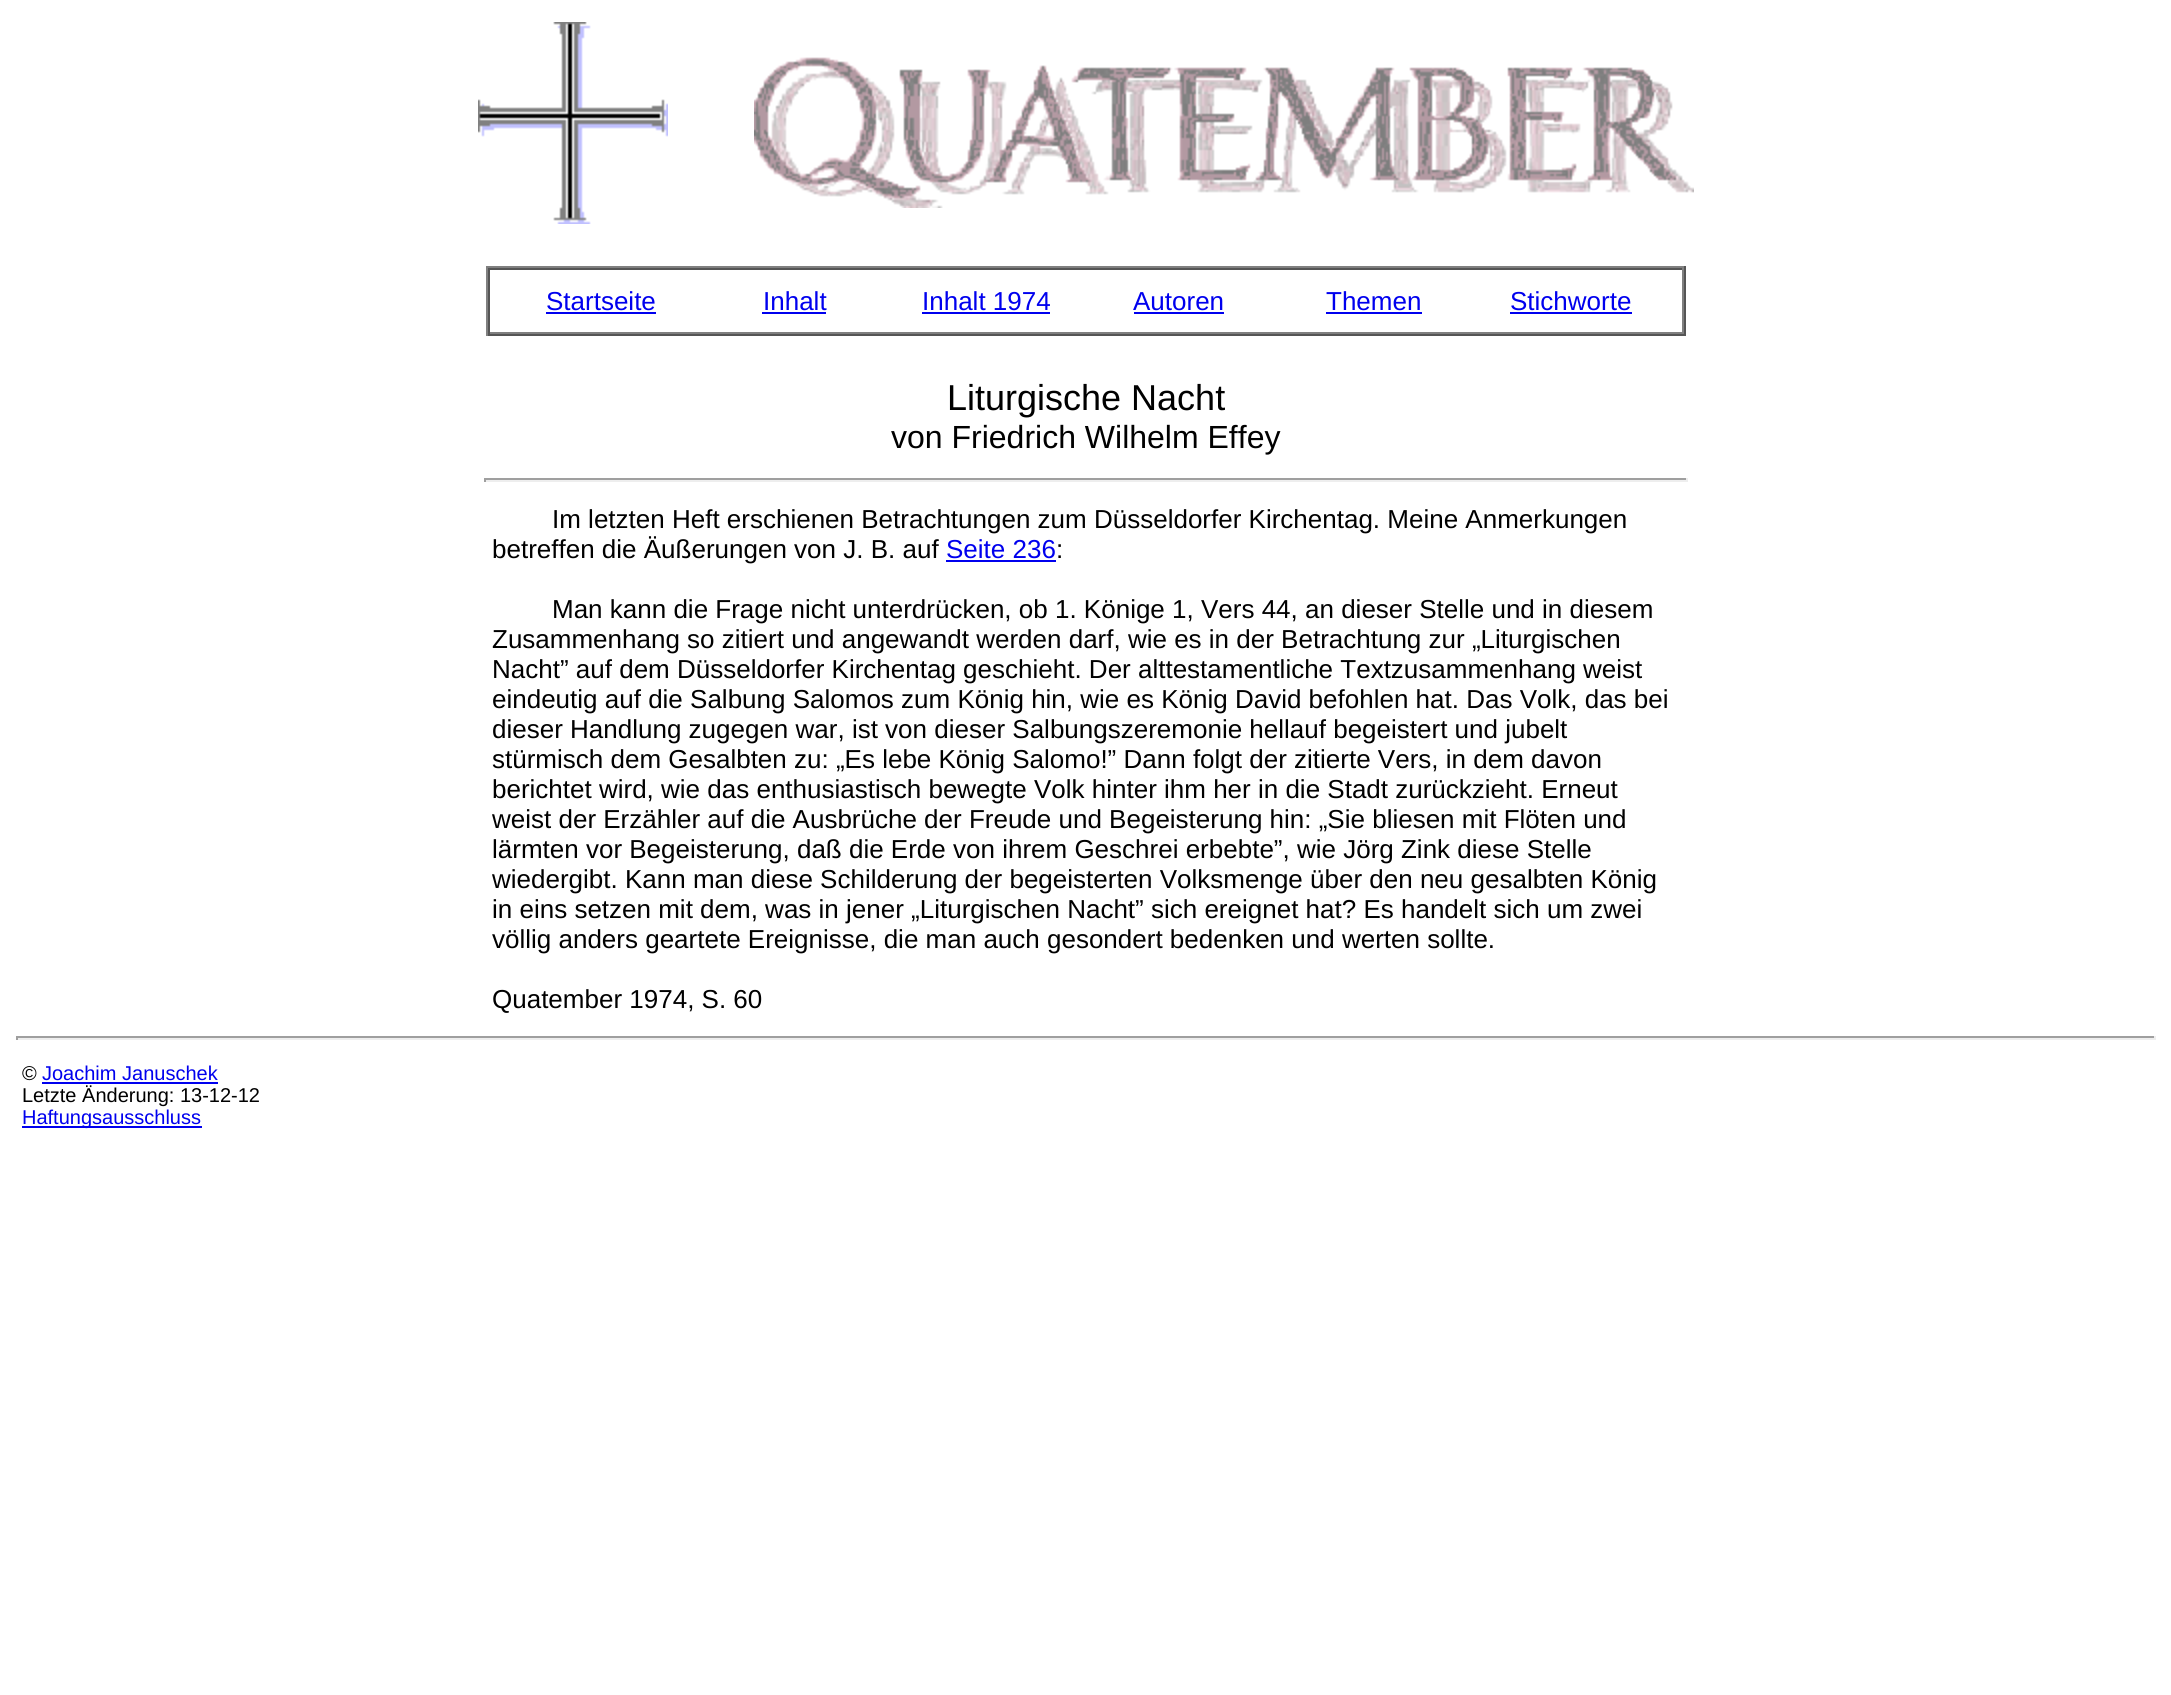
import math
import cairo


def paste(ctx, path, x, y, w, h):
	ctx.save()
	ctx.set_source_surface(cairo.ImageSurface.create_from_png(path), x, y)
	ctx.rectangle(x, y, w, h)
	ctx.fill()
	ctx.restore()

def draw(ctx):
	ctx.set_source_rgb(1, 1, 1)
	ctx.paint()
	paste(ctx, 'media/1.png', 478, 22, 190, 202)
	paste(ctx, 'media/2.png', 754, 57, 940, 151)
	ctx.set_source_rgb(0.502, 0.502, 0.502)
	ctx.rectangle(486, 266, 1200, 2)
	ctx.fill()
	ctx.set_source_rgb(0.333, 0.333, 0.333)
	ctx.rectangle(1684, 266, 2, 70)
	ctx.rectangle(486, 334, 1200, 2)
	ctx.fill()
	ctx.set_source_rgb(0.502, 0.502, 0.502)
	ctx.rectangle(486, 266, 2, 70)
	ctx.fill()
	ctx.set_source_rgb(0.333, 0.333, 0.333)
	ctx.rectangle(488, 268, 1196, 2)
	ctx.fill()
	ctx.set_source_rgb(0.502, 0.502, 0.502)
	ctx.rectangle(1682, 268, 2, 66)
	ctx.rectangle(488, 332, 1196, 2)
	ctx.fill()
	ctx.set_source_rgb(0.333, 0.333, 0.333)
	ctx.rectangle(488, 268, 2, 66)
	ctx.fill()
	ctx.select_font_face('Liberation Sans')
	ctx.set_font_size(26)
	ctx.set_source_rgb(0, 0, 0.933)
	ctx.move_to(546, 310)
	ctx.show_text('Startseite')
	ctx.rectangle(546, 312, 110, 2)
	ctx.fill()
	ctx.move_to(763, 310)
	ctx.show_text('Inhalt')
	ctx.rectangle(762, 312, 64, 2)
	ctx.fill()
	ctx.move_to(922, 310)
	ctx.show_text('Inhalt 1974')
	ctx.rectangle(922, 312, 128, 2)
	ctx.fill()
	ctx.move_to(1133, 310)
	ctx.show_text('Autoren')
	ctx.rectangle(1134, 312, 90, 2)
	ctx.fill()
	ctx.move_to(1326, 310)
	ctx.show_text('Themen')
	ctx.rectangle(1326, 312, 96, 2)
	ctx.fill()
	ctx.move_to(1510, 310)
	ctx.show_text('Stichworte')
	ctx.rectangle(1510, 312, 122, 2)
	ctx.fill()
	ctx.set_font_size(36)
	ctx.set_source_rgb(0, 0, 0)
	ctx.move_to(947, 410)
	ctx.show_text('Liturgische Nacht')
	ctx.set_font_size(32)
	ctx.move_to(891, 448)
	ctx.show_text('von Friedrich Wilhelm Effey')
	ctx.set_source_rgb(0.624, 0.624, 0.624)
	ctx.rectangle(484, 478, 1204, 2)
	ctx.fill()
	ctx.set_source_rgb(0.933, 0.933, 0.933)
	ctx.rectangle(1686, 478, 2, 4)
	ctx.rectangle(484, 480, 1204, 2)
	ctx.fill()
	ctx.set_source_rgb(0.624, 0.624, 0.624)
	ctx.rectangle(484, 478, 2, 4)
	ctx.fill()
	ctx.set_font_size(26)
	ctx.set_source_rgb(0, 0, 0)
	ctx.move_to(552, 528)
	ctx.show_text('Im letzten Heft erschienen Betrachtungen zum Düsseldorfer Kirchentag. Meine Anmerkungen')
	ctx.move_to(492, 558)
	ctx.show_text('betreffen die Äußerungen von J. B. auf')
	ctx.set_source_rgb(0, 0, 0.933)
	ctx.move_to(946, 558)
	ctx.show_text('Seite 236')
	ctx.set_source_rgb(0, 0, 0)
	ctx.move_to(1056, 558)
	ctx.show_text(':')
	ctx.set_source_rgb(0, 0, 0.933)
	ctx.rectangle(946, 560, 110, 2)
	ctx.fill()
	ctx.set_source_rgb(0, 0, 0)
	for x, y, s in [
		(552, 618, 'Man kann die Frage nicht unterdrücken, ob 1. Könige 1, Vers 44, an dieser Stelle und in diesem'),
		(492, 648, 'Zusammenhang so zitiert und angewandt werden darf, wie es in der Betrachtung zur „Liturgischen'),
		(492, 678, 'Nacht” auf dem Düsseldorfer Kirchentag geschieht. Der alttestamentliche Textzusammenhang weist'),
		(492, 708, 'eindeutig auf die Salbung Salomos zum König hin, wie es König David befohlen hat. Das Volk, das bei'),
		(492, 738, 'dieser Handlung zugegen war, ist von dieser Salbungszeremonie hellauf begeistert und jubelt'),
		(492, 768, 'stürmisch dem Gesalbten zu: „Es lebe König Salomo!” Dann folgt der zitierte Vers, in dem davon'),
		(492, 798, 'berichtet wird, wie das enthusiastisch bewegte Volk hinter ihm her in die Stadt zurückzieht. Erneut'),
		(492, 828, 'weist der Erzähler auf die Ausbrüche der Freude und Begeisterung hin: „Sie bliesen mit Flöten und'),
		(492, 858, 'lärmten vor Begeisterung, daß die Erde von ihrem Geschrei erbebte”, wie Jörg Zink diese Stelle'),
		(492, 888, 'wiedergibt. Kann man diese Schilderung der begeisterten Volksmenge über den neu gesalbten König'),
		(492, 918, 'in eins setzen mit dem, was in jener „Liturgischen Nacht” sich ereignet hat? Es handelt sich um zwei'),
		(492, 948, 'völlig anders geartete Ereignisse, die man auch gesondert bedenken und werten sollte.'),
		(492, 1008, 'Quatember 1974, S. 60'),
	]:
		ctx.move_to(x, y)
		ctx.show_text(s)
	ctx.set_source_rgb(0.624, 0.624, 0.624)
	ctx.rectangle(16, 1036, 2140, 2)
	ctx.fill()
	ctx.set_source_rgb(0.933, 0.933, 0.933)
	ctx.rectangle(2154, 1036, 2, 4)
	ctx.rectangle(16, 1038, 2140, 2)
	ctx.fill()
	ctx.set_source_rgb(0.624, 0.624, 0.624)
	ctx.rectangle(16, 1036, 2, 4)
	ctx.fill()
	ctx.set_font_size(20)
	ctx.set_source_rgb(0, 0, 0)
	ctx.move_to(22, 1080)
	ctx.show_text('©')
	ctx.set_source_rgb(0, 0, 0.933)
	ctx.move_to(42, 1080)
	ctx.show_text('Joachim Januschek')
	ctx.rectangle(42, 1082, 176, 2)
	ctx.fill()
	ctx.set_source_rgb(0, 0, 0)
	ctx.move_to(22, 1102)
	ctx.show_text('Letzte Änderung: 13-12-12')
	ctx.set_source_rgb(0, 0, 0.933)
	ctx.rectangle(22, 1126, 180, 2)
	ctx.fill()
	ctx.move_to(22, 1124)
	ctx.show_text('Haftungsausschluss')


surface = cairo.ImageSurface(cairo.FORMAT_RGB24, 2171, 1695)
ctx = cairo.Context(surface)
options = cairo.FontOptions()
options.set_hint_metrics(cairo.HINT_METRICS_OFF)
options.set_hint_style(cairo.HINT_STYLE_NONE)
ctx.set_font_options(options)
ctx.set_miter_limit(4)
draw(ctx)
surface.write_to_png('image.png')
